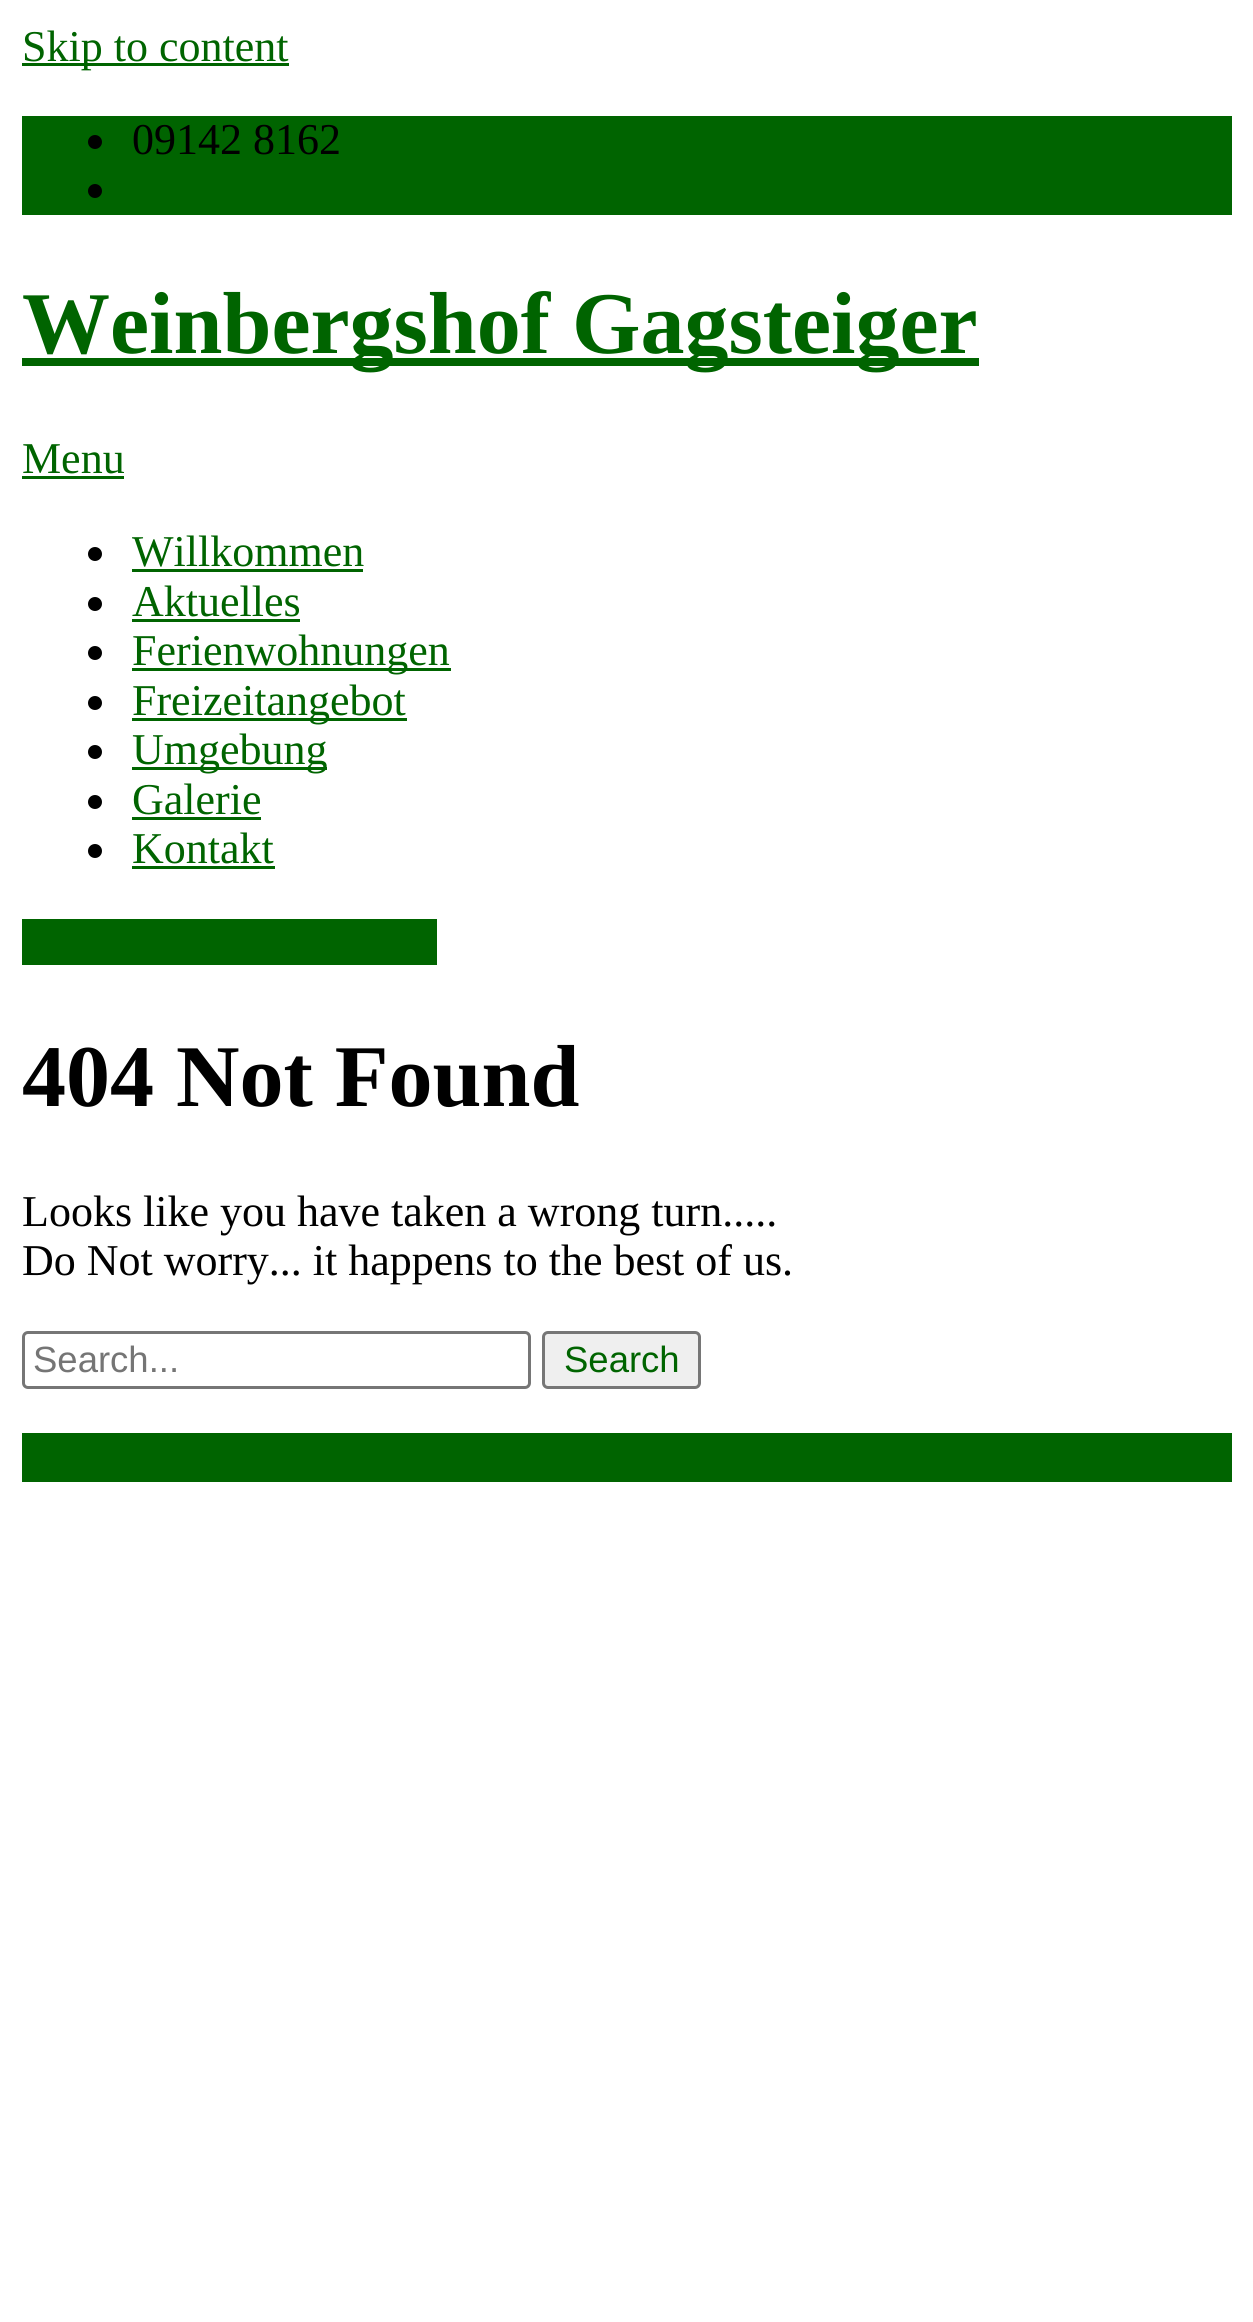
import math
import cairo


def round_path(ctx, x, y, w, h, r):
	ctx.new_sub_path()
	for i, (u, v) in enumerate([(x + w - r, y + h - r), (x + r, y + h - r), (x + r, y + r), (x + w - r, y + r)]):
		ctx.arc(u, v, r, i * math.pi / 2, (i + 1) * math.pi / 2)
	ctx.close_path()

def draw(ctx):
	ctx.set_source_rgb(1, 1, 1)
	ctx.paint()
	ctx.set_source_rgb(0, 0.392, 0)
	ctx.rectangle(22, 63, 267, 3)
	ctx.fill()
	ctx.select_font_face('Liberation Serif')
	ctx.set_font_size(44)
	ctx.move_to(22, 61)
	ctx.show_text('Skip to content')
	ctx.rectangle(22, 116, 1210, 99)
	ctx.fill()
	ctx.set_source_rgb(0, 0, 0)
	ctx.arc(95, 142, 7, 0, 2 * math.pi)
	ctx.fill()
	ctx.move_to(132, 154)
	ctx.show_text('09142 8162')
	ctx.new_path()
	ctx.arc(95, 191, 7, 0, 2 * math.pi)
	ctx.fill()
	ctx.set_source_rgb(0, 0.392, 0)
	ctx.rectangle(22, 358, 957, 8)
	ctx.fill()
	ctx.select_font_face('Liberation Serif', cairo.FONT_SLANT_NORMAL, cairo.FONT_WEIGHT_BOLD)
	ctx.set_font_size(88)
	ctx.move_to(22, 353)
	ctx.show_text('Weinbergshof Gagsteiger')
	ctx.select_font_face('Liberation Serif')
	ctx.set_font_size(44)
	ctx.move_to(22, 473)
	ctx.show_text('Menu')
	ctx.rectangle(22, 476, 102, 3)
	ctx.fill()
	ctx.set_source_rgb(0, 0, 0)
	ctx.arc(95, 554, 7, 0, 2 * math.pi)
	ctx.fill()
	ctx.set_source_rgb(0, 0.392, 0)
	ctx.move_to(132, 566)
	ctx.show_text('Willkommen')
	ctx.rectangle(132, 569, 231, 3)
	ctx.fill()
	ctx.set_source_rgb(0, 0, 0)
	ctx.arc(95, 604, 7, 0, 2 * math.pi)
	ctx.fill()
	ctx.set_source_rgb(0, 0.392, 0)
	ctx.move_to(132, 616)
	ctx.show_text('Aktuelles')
	ctx.rectangle(132, 619, 168, 3)
	ctx.fill()
	ctx.set_source_rgb(0, 0, 0)
	ctx.arc(95, 653, 7, 0, 2 * math.pi)
	ctx.fill()
	ctx.set_source_rgb(0, 0.392, 0)
	ctx.rectangle(132, 668, 319, 3)
	ctx.fill()
	ctx.move_to(132, 665)
	ctx.show_text('Ferienwohnungen')
	ctx.set_source_rgb(0, 0, 0)
	ctx.new_path()
	ctx.arc(95, 703, 7, 0, 2 * math.pi)
	ctx.fill()
	ctx.set_source_rgb(0, 0.392, 0)
	ctx.rectangle(132, 718, 275, 3)
	ctx.fill()
	ctx.move_to(132, 715)
	ctx.show_text('Freizeitangebot')
	ctx.set_source_rgb(0, 0, 0)
	ctx.new_path()
	ctx.arc(95, 752, 7, 0, 2 * math.pi)
	ctx.fill()
	ctx.set_source_rgb(0, 0.392, 0)
	ctx.rectangle(132, 767, 195, 3)
	ctx.fill()
	ctx.move_to(132, 764)
	ctx.show_text('Umgebung')
	ctx.set_source_rgb(0, 0, 0)
	ctx.new_path()
	ctx.arc(95, 802, 7, 0, 2 * math.pi)
	ctx.fill()
	ctx.set_source_rgb(0, 0.392, 0)
	ctx.move_to(132, 814)
	ctx.show_text('Galerie')
	ctx.rectangle(132, 817, 129, 3)
	ctx.fill()
	ctx.set_source_rgb(0, 0, 0)
	ctx.arc(95, 851, 7, 0, 2 * math.pi)
	ctx.fill()
	ctx.set_source_rgb(0, 0.392, 0)
	ctx.move_to(132, 863)
	ctx.show_text('Kontakt')
	ctx.rectangle(132, 866, 143, 3)
	ctx.fill()
	ctx.rectangle(22, 919, 415, 46)
	ctx.fill()
	ctx.select_font_face('Liberation Serif', cairo.FONT_SLANT_NORMAL, cairo.FONT_WEIGHT_BOLD)
	ctx.set_font_size(88)
	ctx.set_source_rgb(0, 0, 0)
	ctx.move_to(22, 1106)
	ctx.show_text('404 Not Found')
	ctx.select_font_face('Liberation Serif')
	ctx.set_font_size(44)
	ctx.move_to(22, 1226)
	ctx.show_text('Looks like you have taken a wrong turn.....')
	ctx.move_to(22, 1275)
	ctx.show_text('Do Not worry... it happens to the best of us.')
	round_path(ctx, 23.5, 1332.5, 506, 55, 4.5)
	ctx.set_source_rgb(0.463, 0.463, 0.463)
	ctx.set_line_width(3)
	ctx.stroke()
	ctx.select_font_face('Liberation Sans')
	ctx.set_font_size(36.5)
	ctx.set_source_rgb(0.459, 0.459, 0.459)
	ctx.move_to(33, 1372)
	ctx.show_text('Search...')
	ctx.set_source_rgb(0.937, 0.937, 0.937)
	round_path(ctx, 543.5, 1332.5, 156, 55, 4.5)
	ctx.fill_preserve()
	ctx.set_source_rgb(0.463, 0.463, 0.463)
	ctx.stroke()
	ctx.set_source_rgb(0, 0.392, 0)
	ctx.move_to(564, 1372)
	ctx.show_text('Search')
	ctx.rectangle(22, 1433, 1210, 49)
	ctx.fill()


surface = cairo.ImageSurface(cairo.FORMAT_RGB24, 1253, 2322)
ctx = cairo.Context(surface)
options = cairo.FontOptions()
options.set_hint_metrics(cairo.HINT_METRICS_OFF)
options.set_hint_style(cairo.HINT_STYLE_NONE)
ctx.set_font_options(options)
ctx.set_miter_limit(4)
draw(ctx)
surface.write_to_png('image.png')
